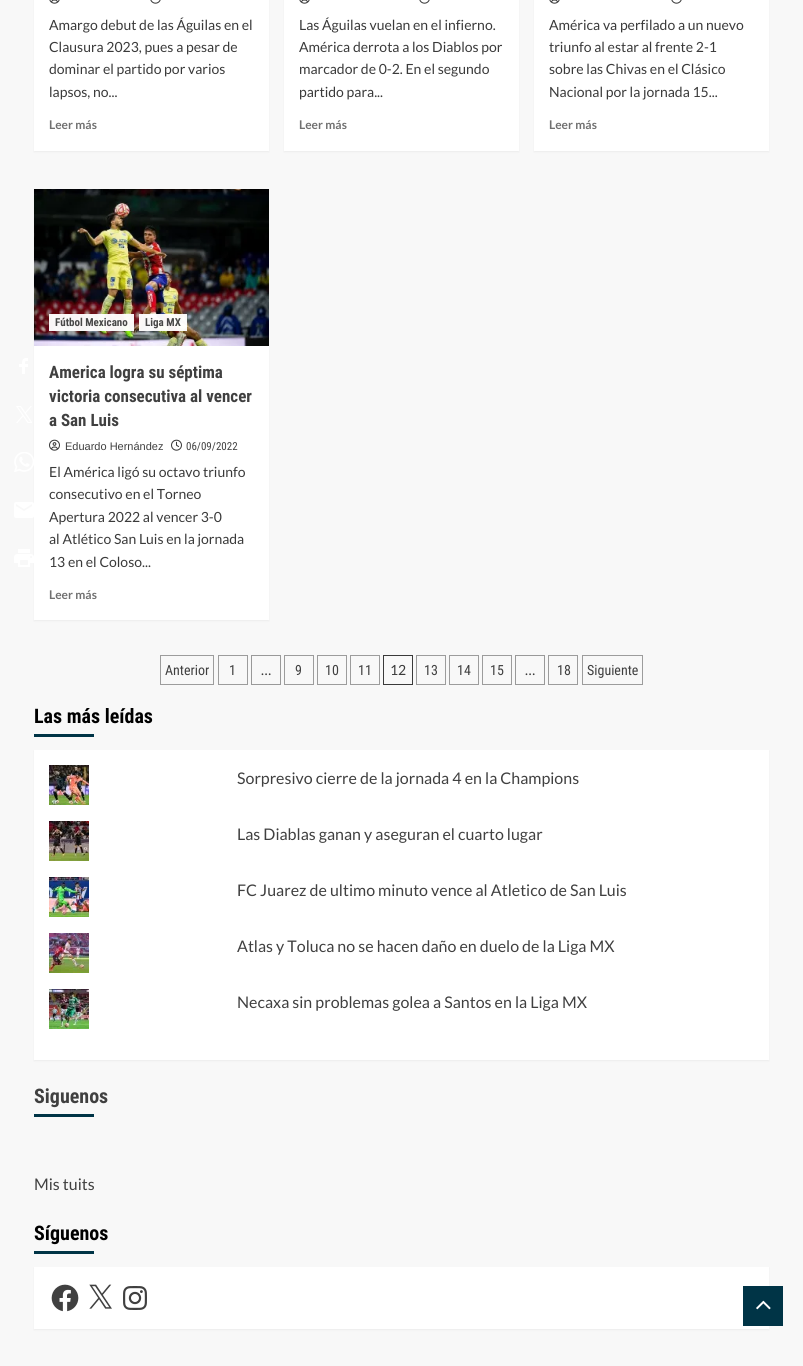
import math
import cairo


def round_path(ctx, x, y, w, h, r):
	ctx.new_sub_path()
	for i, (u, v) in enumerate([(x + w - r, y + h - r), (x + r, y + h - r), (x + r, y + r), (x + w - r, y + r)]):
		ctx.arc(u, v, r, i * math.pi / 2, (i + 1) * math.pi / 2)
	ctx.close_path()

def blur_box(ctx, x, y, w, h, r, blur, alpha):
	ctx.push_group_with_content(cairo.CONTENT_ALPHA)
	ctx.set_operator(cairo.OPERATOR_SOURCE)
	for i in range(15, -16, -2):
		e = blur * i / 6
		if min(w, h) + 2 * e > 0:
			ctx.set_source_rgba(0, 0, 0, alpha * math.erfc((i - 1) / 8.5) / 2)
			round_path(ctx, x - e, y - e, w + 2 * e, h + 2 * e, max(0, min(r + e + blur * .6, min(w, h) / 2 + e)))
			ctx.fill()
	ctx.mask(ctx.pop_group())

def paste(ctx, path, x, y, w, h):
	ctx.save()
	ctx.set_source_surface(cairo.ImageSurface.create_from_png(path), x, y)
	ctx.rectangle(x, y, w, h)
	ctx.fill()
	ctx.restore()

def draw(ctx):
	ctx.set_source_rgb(0.969, 0.969, 0.969)
	ctx.paint()
	paste(ctx, 'media/1.png', 19, 358, 9, 16)
	ctx.set_source_rgb(0, 0, 0)
	blur_box(ctx, 34, 190, 235, 431, 0, 1, 0.05)
	paste(ctx, 'media/2.png', 16, 406, 16, 17)
	paste(ctx, 'media/3.png', 14, 452, 20, 20)
	paste(ctx, 'media/4.png', 14, 502, 20, 16)
	paste(ctx, 'media/5.png', 14, 549, 20, 18)
	blur_box(ctx, 34, -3, 235, 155, 0, 1, 0.05)
	ctx.set_source_rgb(1, 1, 1)
	ctx.rectangle(34, 0, 235, 151)
	ctx.fill()
	paste(ctx, 'media/6.png', 49, 0, 11, 4)
	paste(ctx, 'media/7.png', 150, 0, 11, 4)
	ctx.select_font_face('Lato')
	ctx.set_font_size(14)
	ctx.set_source_rgb(0.227, 0.227, 0.227)
	for x, y, s in [
		(49, 30, 'Amargo debut de las Águilas en el'),
		(49, 52, 'Clausura 2023, pues a pesar de'),
		(49, 74, 'dominar el partido por varios'),
		(49, 97, 'lapsos, no...'),
	]:
		ctx.move_to(x, y)
		ctx.show_text(s)
	ctx.select_font_face('Lato', cairo.FONT_SLANT_NORMAL, cairo.FONT_WEIGHT_BOLD)
	ctx.set_font_size(12)
	ctx.set_source_rgb(0.439, 0.439, 0.439)
	ctx.move_to(49, 129)
	ctx.show_text('Leer más')
	ctx.set_source_rgb(0, 0, 0)
	blur_box(ctx, 284, -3, 235, 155, 0, 1, 0.05)
	ctx.set_source_rgb(1, 1, 1)
	ctx.rectangle(284, 0, 235, 151)
	ctx.fill()
	paste(ctx, 'media/6.png', 299, 0, 11, 4)
	paste(ctx, 'media/7.png', 419, 0, 11, 4)
	ctx.select_font_face('Lato')
	ctx.set_font_size(14)
	ctx.set_source_rgb(0.227, 0.227, 0.227)
	for x, y, s in [
		(299, 30, 'Las Águilas vuelan en el infierno.'),
		(299, 52, 'América derrota a los Diablos por'),
		(299, 74, 'marcador de 0-2. En el segundo'),
		(299, 97, 'partido para...'),
	]:
		ctx.move_to(x, y)
		ctx.show_text(s)
	ctx.select_font_face('Lato', cairo.FONT_SLANT_NORMAL, cairo.FONT_WEIGHT_BOLD)
	ctx.set_font_size(12)
	ctx.set_source_rgb(0.439, 0.439, 0.439)
	ctx.move_to(299, 129)
	ctx.show_text('Leer más')
	ctx.set_source_rgb(0, 0, 0)
	blur_box(ctx, 534, -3, 235, 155, 0, 1, 0.05)
	ctx.set_source_rgb(1, 1, 1)
	ctx.rectangle(534, 0, 235, 151)
	ctx.fill()
	paste(ctx, 'media/6.png', 549, 0, 11, 4)
	paste(ctx, 'media/7.png', 671, 0, 11, 4)
	ctx.select_font_face('Lato')
	ctx.set_font_size(14)
	ctx.set_source_rgb(0.227, 0.227, 0.227)
	for x, y, s in [
		(549, 30, 'América va perfilado a un nuevo'),
		(549, 52, 'triunfo al estar al frente 2-1'),
		(549, 74, 'sobre las Chivas en el Clásico'),
		(549, 97, 'Nacional por la jornada 15...'),
	]:
		ctx.move_to(x, y)
		ctx.show_text(s)
	ctx.select_font_face('Lato', cairo.FONT_SLANT_NORMAL, cairo.FONT_WEIGHT_BOLD)
	ctx.set_font_size(12)
	ctx.set_source_rgb(0.439, 0.439, 0.439)
	ctx.move_to(549, 129)
	ctx.show_text('Leer más')
	ctx.set_source_rgb(1, 1, 1)
	ctx.rectangle(34, 346, 235, 274)
	ctx.fill()
	paste(ctx, 'media/8.png', 34, 189, 235, 157)
	ctx.set_source_rgba(1, 1, 1, 0.96)
	ctx.rectangle(49, 314, 85, 17)
	ctx.fill()
	ctx.select_font_face('Roboto Condensed', cairo.FONT_SLANT_NORMAL, cairo.FONT_WEIGHT_BOLD)
	ctx.set_font_size(11)
	ctx.set_source_rgb(0.278, 0.278, 0.278)
	ctx.move_to(55, 326)
	ctx.show_text('Fútbol Mexicano')
	ctx.set_source_rgba(1, 1, 1, 0.96)
	ctx.rectangle(139, 314, 48, 17)
	ctx.fill()
	ctx.set_source_rgb(0.278, 0.278, 0.278)
	ctx.move_to(145, 326)
	ctx.show_text('Liga MX')
	ctx.set_font_size(17)
	ctx.set_source_rgb(0.251, 0.251, 0.251)
	for x, y, s in [
		(49, 378, 'America logra su séptima'),
		(49, 402, 'victoria consecutiva al vencer'),
		(49, 426, 'a San Luis'),
	]:
		ctx.move_to(x, y)
		ctx.show_text(s)
	paste(ctx, 'media/9.png', 49, 439, 11, 12)
	ctx.select_font_face('Liberation Sans')
	ctx.set_font_size(11)
	ctx.move_to(65, 450)
	ctx.show_text('Eduardo Hernández')
	paste(ctx, 'media/10.png', 171, 439, 11, 12)
	ctx.select_font_face('Roboto Condensed')
	ctx.move_to(186, 450)
	ctx.show_text('06/09/2022')
	ctx.select_font_face('Lato')
	ctx.set_font_size(14)
	ctx.set_source_rgb(0.227, 0.227, 0.227)
	for x, y, s in [
		(49, 477, 'El América ligó su octavo triunfo'),
		(49, 499, 'consecutivo en el Torneo'),
		(49, 522, 'Apertura 2022 al vencer 3-0'),
		(49, 544, 'al Atlético San Luis en la jornada'),
		(49, 567, '13 en el Coloso...'),
	]:
		ctx.move_to(x, y)
		ctx.show_text(s)
	ctx.select_font_face('Lato', cairo.FONT_SLANT_NORMAL, cairo.FONT_WEIGHT_BOLD)
	ctx.set_font_size(12)
	ctx.set_source_rgb(0.439, 0.439, 0.439)
	ctx.move_to(49, 599)
	ctx.show_text('Leer más')
	ctx.rectangle(160.5, 655.5, 53, 29)
	ctx.set_source_rgb(0.612, 0.612, 0.612)
	ctx.set_line_width(1)
	ctx.stroke()
	ctx.select_font_face('Roboto Condensed')
	ctx.set_font_size(14)
	ctx.set_source_rgb(0.251, 0.251, 0.251)
	ctx.move_to(165, 675)
	ctx.show_text('Anterior')
	ctx.rectangle(218.5, 655.5, 29, 29)
	ctx.set_source_rgb(0.612, 0.612, 0.612)
	ctx.stroke()
	ctx.set_source_rgb(0.251, 0.251, 0.251)
	ctx.move_to(229, 675)
	ctx.show_text('1')
	ctx.rectangle(251.5, 655.5, 29, 29)
	ctx.set_source_rgb(0.6, 0.6, 0.6)
	ctx.stroke()
	ctx.select_font_face('Lato')
	ctx.set_source_rgb(0.227, 0.227, 0.227)
	ctx.move_to(261, 675)
	ctx.show_text('…')
	ctx.rectangle(284.5, 655.5, 29, 29)
	ctx.set_source_rgb(0.612, 0.612, 0.612)
	ctx.stroke()
	ctx.select_font_face('Roboto Condensed')
	ctx.set_source_rgb(0.251, 0.251, 0.251)
	ctx.move_to(295, 675)
	ctx.show_text('9')
	ctx.rectangle(317.5, 655.5, 29, 29)
	ctx.set_source_rgb(0.612, 0.612, 0.612)
	ctx.stroke()
	ctx.set_source_rgb(0.251, 0.251, 0.251)
	ctx.move_to(325, 675)
	ctx.show_text('10')
	ctx.rectangle(350.5, 655.5, 29, 29)
	ctx.set_source_rgb(0.612, 0.612, 0.612)
	ctx.stroke()
	ctx.set_source_rgb(0.251, 0.251, 0.251)
	ctx.move_to(358, 675)
	ctx.show_text('11')
	ctx.rectangle(383.5, 655.5, 29, 29)
	ctx.set_source_rgb(0.227, 0.227, 0.227)
	ctx.stroke()
	ctx.select_font_face('Lato')
	ctx.move_to(390, 675)
	ctx.show_text('12')
	ctx.rectangle(416.5, 655.5, 29, 29)
	ctx.set_source_rgb(0.612, 0.612, 0.612)
	ctx.stroke()
	ctx.select_font_face('Roboto Condensed')
	ctx.set_source_rgb(0.251, 0.251, 0.251)
	ctx.move_to(424, 675)
	ctx.show_text('13')
	ctx.rectangle(449.5, 655.5, 29, 29)
	ctx.set_source_rgb(0.612, 0.612, 0.612)
	ctx.stroke()
	ctx.set_source_rgb(0.251, 0.251, 0.251)
	ctx.move_to(457, 675)
	ctx.show_text('14')
	ctx.rectangle(482.5, 655.5, 29, 29)
	ctx.set_source_rgb(0.612, 0.612, 0.612)
	ctx.stroke()
	ctx.set_source_rgb(0.251, 0.251, 0.251)
	ctx.move_to(490, 675)
	ctx.show_text('15')
	ctx.rectangle(515.5, 655.5, 29, 29)
	ctx.set_source_rgb(0.6, 0.6, 0.6)
	ctx.stroke()
	ctx.select_font_face('Lato')
	ctx.set_source_rgb(0.227, 0.227, 0.227)
	ctx.move_to(525, 675)
	ctx.show_text('…')
	ctx.rectangle(548.5, 655.5, 29, 29)
	ctx.set_source_rgb(0.612, 0.612, 0.612)
	ctx.stroke()
	ctx.select_font_face('Roboto Condensed')
	ctx.set_source_rgb(0.251, 0.251, 0.251)
	ctx.move_to(557, 675)
	ctx.show_text('18')
	ctx.rectangle(582.5, 655.5, 60, 29)
	ctx.set_source_rgb(0.612, 0.612, 0.612)
	ctx.stroke()
	ctx.set_source_rgb(0.251, 0.251, 0.251)
	ctx.move_to(587, 675)
	ctx.show_text('Siguiente')
	ctx.select_font_face('Roboto Condensed', cairo.FONT_SLANT_NORMAL, cairo.FONT_WEIGHT_BOLD)
	ctx.set_font_size(20)
	ctx.set_source_rgb(0, 0, 0)
	ctx.move_to(34, 723)
	ctx.show_text('Las más leídas')
	ctx.set_source_rgb(0, 0.204, 0.275)
	ctx.rectangle(34, 734, 60, 3)
	ctx.fill()
	ctx.set_source_rgb(0, 0, 0)
	blur_box(ctx, 34, 751, 735, 310, 0, 1, 0.05)
	ctx.set_source_rgb(1, 1, 1)
	ctx.rectangle(34, 750, 735, 310)
	ctx.fill()
	paste(ctx, 'media/11.png', 49, 765, 40, 40)
	ctx.select_font_face('Lato')
	ctx.set_font_size(16)
	ctx.set_source_rgb(0.251, 0.251, 0.251)
	ctx.move_to(237, 784)
	ctx.show_text('Sorpresivo cierre de la jornada 4 en la Champions')
	paste(ctx, 'media/12.png', 49, 821, 40, 40)
	ctx.move_to(237, 840)
	ctx.show_text('Las Diablas ganan y aseguran el cuarto lugar')
	paste(ctx, 'media/13.png', 49, 877, 40, 40)
	ctx.move_to(237, 896)
	ctx.show_text('FC Juarez de ultimo minuto vence al Atletico de San Luis')
	paste(ctx, 'media/14.png', 49, 933, 40, 40)
	ctx.move_to(237, 952)
	ctx.show_text('Atlas y Toluca no se hacen daño en duelo de la Liga MX')
	paste(ctx, 'media/15.png', 49, 989, 40, 40)
	ctx.move_to(237, 1008)
	ctx.show_text('Necaxa sin problemas golea a Santos en la Liga MX')
	ctx.select_font_face('Roboto Condensed', cairo.FONT_SLANT_NORMAL, cairo.FONT_WEIGHT_BOLD)
	ctx.set_font_size(20)
	ctx.move_to(34, 1103)
	ctx.show_text('Siguenos')
	ctx.set_source_rgb(0, 0.204, 0.275)
	ctx.rectangle(34, 1114, 60, 3)
	ctx.fill()
	ctx.select_font_face('Lato')
	ctx.set_font_size(16)
	ctx.set_source_rgb(0.251, 0.251, 0.251)
	ctx.move_to(34, 1190)
	ctx.show_text('Mis tuits')
	ctx.select_font_face('Roboto Condensed', cairo.FONT_SLANT_NORMAL, cairo.FONT_WEIGHT_BOLD)
	ctx.set_font_size(20)
	ctx.set_source_rgb(0, 0, 0)
	ctx.move_to(34, 1240)
	ctx.show_text('Síguenos')
	ctx.set_source_rgb(0, 0.204, 0.275)
	ctx.rectangle(34, 1251, 60, 3)
	ctx.fill()
	ctx.set_source_rgb(0, 0, 0)
	blur_box(ctx, 34, 1268, 735, 62, 0, 1, 0.05)
	ctx.set_source_rgb(1, 1, 1)
	ctx.rectangle(34, 1267, 735, 62)
	ctx.fill()
	paste(ctx, 'media/16.png', 51, 1284, 28, 28)
	paste(ctx, 'media/17.png', 89, 1284, 23, 25)
	paste(ctx, 'media/18.png', 123, 1286, 24, 24)
	ctx.set_source_rgb(0, 0.204, 0.275)
	ctx.rectangle(743, 1286, 40, 40)
	ctx.fill()
	paste(ctx, 'media/19.png', 756, 1300, 15, 10)


surface = cairo.ImageSurface(cairo.FORMAT_RGB24, 803, 1366)
ctx = cairo.Context(surface)
options = cairo.FontOptions()
options.set_hint_metrics(cairo.HINT_METRICS_OFF)
options.set_hint_style(cairo.HINT_STYLE_NONE)
ctx.set_font_options(options)
ctx.set_miter_limit(4)
draw(ctx)
surface.write_to_png('image.png')
